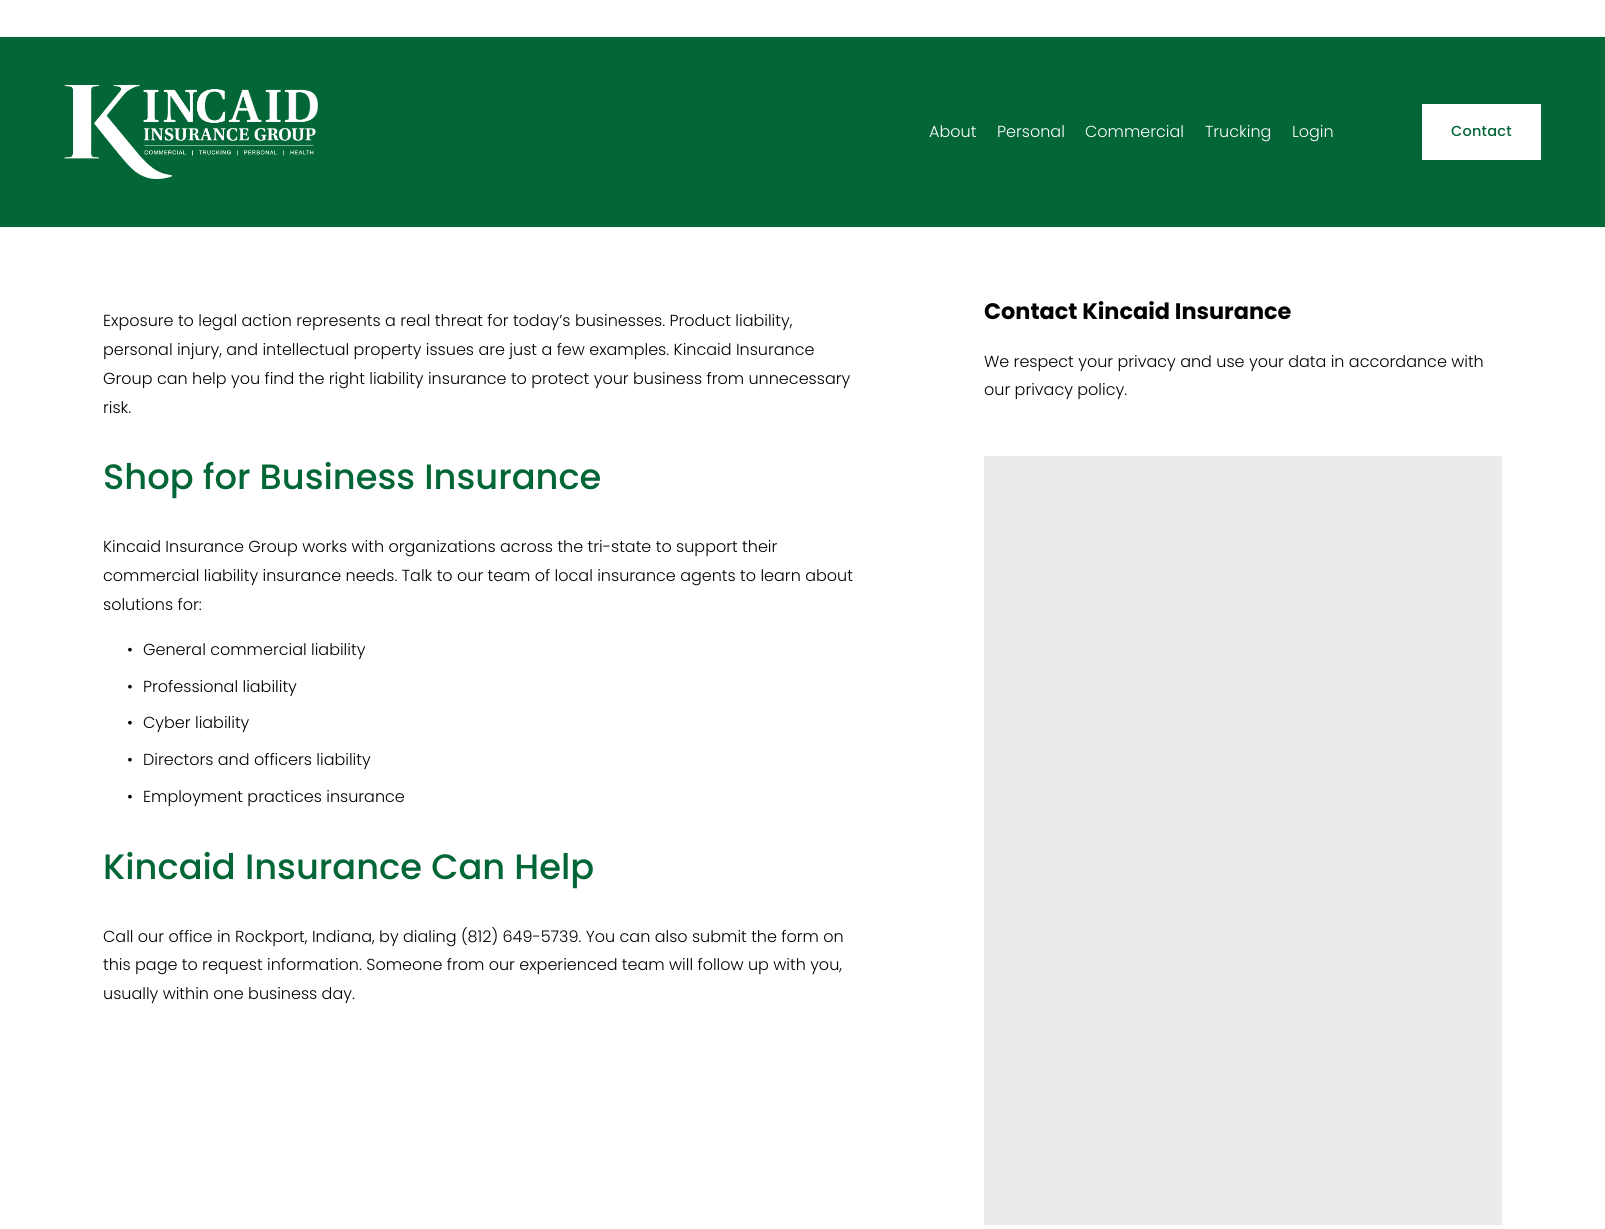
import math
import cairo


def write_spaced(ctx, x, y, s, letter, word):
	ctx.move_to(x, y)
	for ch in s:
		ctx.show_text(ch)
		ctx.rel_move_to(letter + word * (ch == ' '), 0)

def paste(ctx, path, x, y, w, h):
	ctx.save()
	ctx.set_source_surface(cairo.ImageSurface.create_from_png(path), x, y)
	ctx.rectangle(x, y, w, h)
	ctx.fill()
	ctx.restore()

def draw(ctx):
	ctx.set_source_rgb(1, 1, 1)
	ctx.paint()
	ctx.set_source_rgb(0.008, 0.4, 0.212)
	ctx.rectangle(0, 37, 1605, 190)
	ctx.fill()
	paste(ctx, 'media/1.png', 64, 84, 254, 95)
	ctx.select_font_face('Poppins Light')
	ctx.set_font_size(16)
	ctx.set_source_rgb(1, 1, 1)
	for x, y, s in [
		(929, 137, 'About'),
		(997, 137, 'Personal'),
		(1085, 137, 'Commercial'),
		(1205, 137, 'Trucking'),
		(1292, 137, 'Login'),
	]:
		ctx.move_to(x, y)
		ctx.show_text(s)
	ctx.rectangle(1422, 104, 119, 56)
	ctx.fill()
	ctx.select_font_face('Poppins Medium')
	ctx.set_font_size(14.5)
	ctx.set_source_rgb(0.008, 0.4, 0.212)
	write_spaced(ctx, 1451, 136, 'Contact', 0.25, 0)
	ctx.select_font_face('Poppins Light')
	ctx.set_font_size(16)
	ctx.set_source_rgb(0, 0, 0)
	for x, y, s in [
		(103, 326, 'Exposure to legal action represents a real threat for today’s businesses. Product liability,'),
		(103, 355, 'personal injury, and intellectual property issues are just a few examples. Kincaid Insurance'),
		(103, 384, 'Group can help you find the right liability insurance to protect your business from unnecessary'),
		(103, 413, 'risk.'),
	]:
		ctx.move_to(x, y)
		ctx.show_text(s)
	ctx.select_font_face('Poppins Medium')
	ctx.set_font_size(35.25)
	ctx.set_source_rgb(0.008, 0.4, 0.212)
	ctx.move_to(103, 489)
	ctx.show_text('Shop for Business Insurance')
	ctx.select_font_face('Poppins Light')
	ctx.set_font_size(16)
	ctx.set_source_rgb(0, 0, 0)
	for x, y, s in [
		(103, 552, 'Kincaid Insurance Group works with organizations across the tri-state to support their'),
		(103, 581, 'commercial liability insurance needs. Talk to our team of local insurance agents to learn about'),
		(103, 610, 'solutions for:'),
		(127, 655, '•'),
		(143, 655, 'General commercial liability'),
		(127, 692, '•'),
		(143, 692, 'Professional liability'),
		(127, 728, '•'),
		(143, 728, 'Cyber liability'),
		(127, 765, '•'),
		(143, 765, 'Directors and officers liability'),
		(127, 802, '•'),
		(143, 802, 'Employment practices insurance'),
	]:
		ctx.move_to(x, y)
		ctx.show_text(s)
	ctx.select_font_face('Poppins Medium')
	ctx.set_font_size(35.25)
	ctx.set_source_rgb(0.008, 0.4, 0.212)
	ctx.move_to(103, 879)
	ctx.show_text('Kincaid Insurance Can Help')
	ctx.select_font_face('Poppins Light')
	ctx.set_font_size(16)
	ctx.set_source_rgb(0, 0, 0)
	for x, y, s in [
		(103, 942, 'Call our office in Rockport, Indiana, by dialing (812) 649-5739. You can also submit the form on'),
		(103, 970, 'this page to request information. Someone from our experienced team will follow up with you,'),
		(103, 999, 'usually within one business day.'),
	]:
		ctx.move_to(x, y)
		ctx.show_text(s)
	ctx.select_font_face('Poppins', cairo.FONT_SLANT_NORMAL, cairo.FONT_WEIGHT_BOLD)
	ctx.set_font_size(22.4)
	ctx.move_to(984, 319)
	ctx.show_text('Contact Kincaid Insurance')
	ctx.select_font_face('Poppins Light')
	ctx.set_font_size(16)
	ctx.move_to(984, 367)
	ctx.show_text('We respect your privacy and use your data in accordance with')
	ctx.move_to(984, 395)
	ctx.show_text('our privacy policy.')
	ctx.set_source_rgb(0.922, 0.918, 0.922)
	ctx.rectangle(984, 456, 518, 769)
	ctx.fill()


surface = cairo.ImageSurface(cairo.FORMAT_RGB24, 1605, 1229)
ctx = cairo.Context(surface)
options = cairo.FontOptions()
options.set_hint_metrics(cairo.HINT_METRICS_OFF)
options.set_hint_style(cairo.HINT_STYLE_NONE)
ctx.set_font_options(options)
ctx.set_miter_limit(4)
draw(ctx)
surface.write_to_png('image.png')
